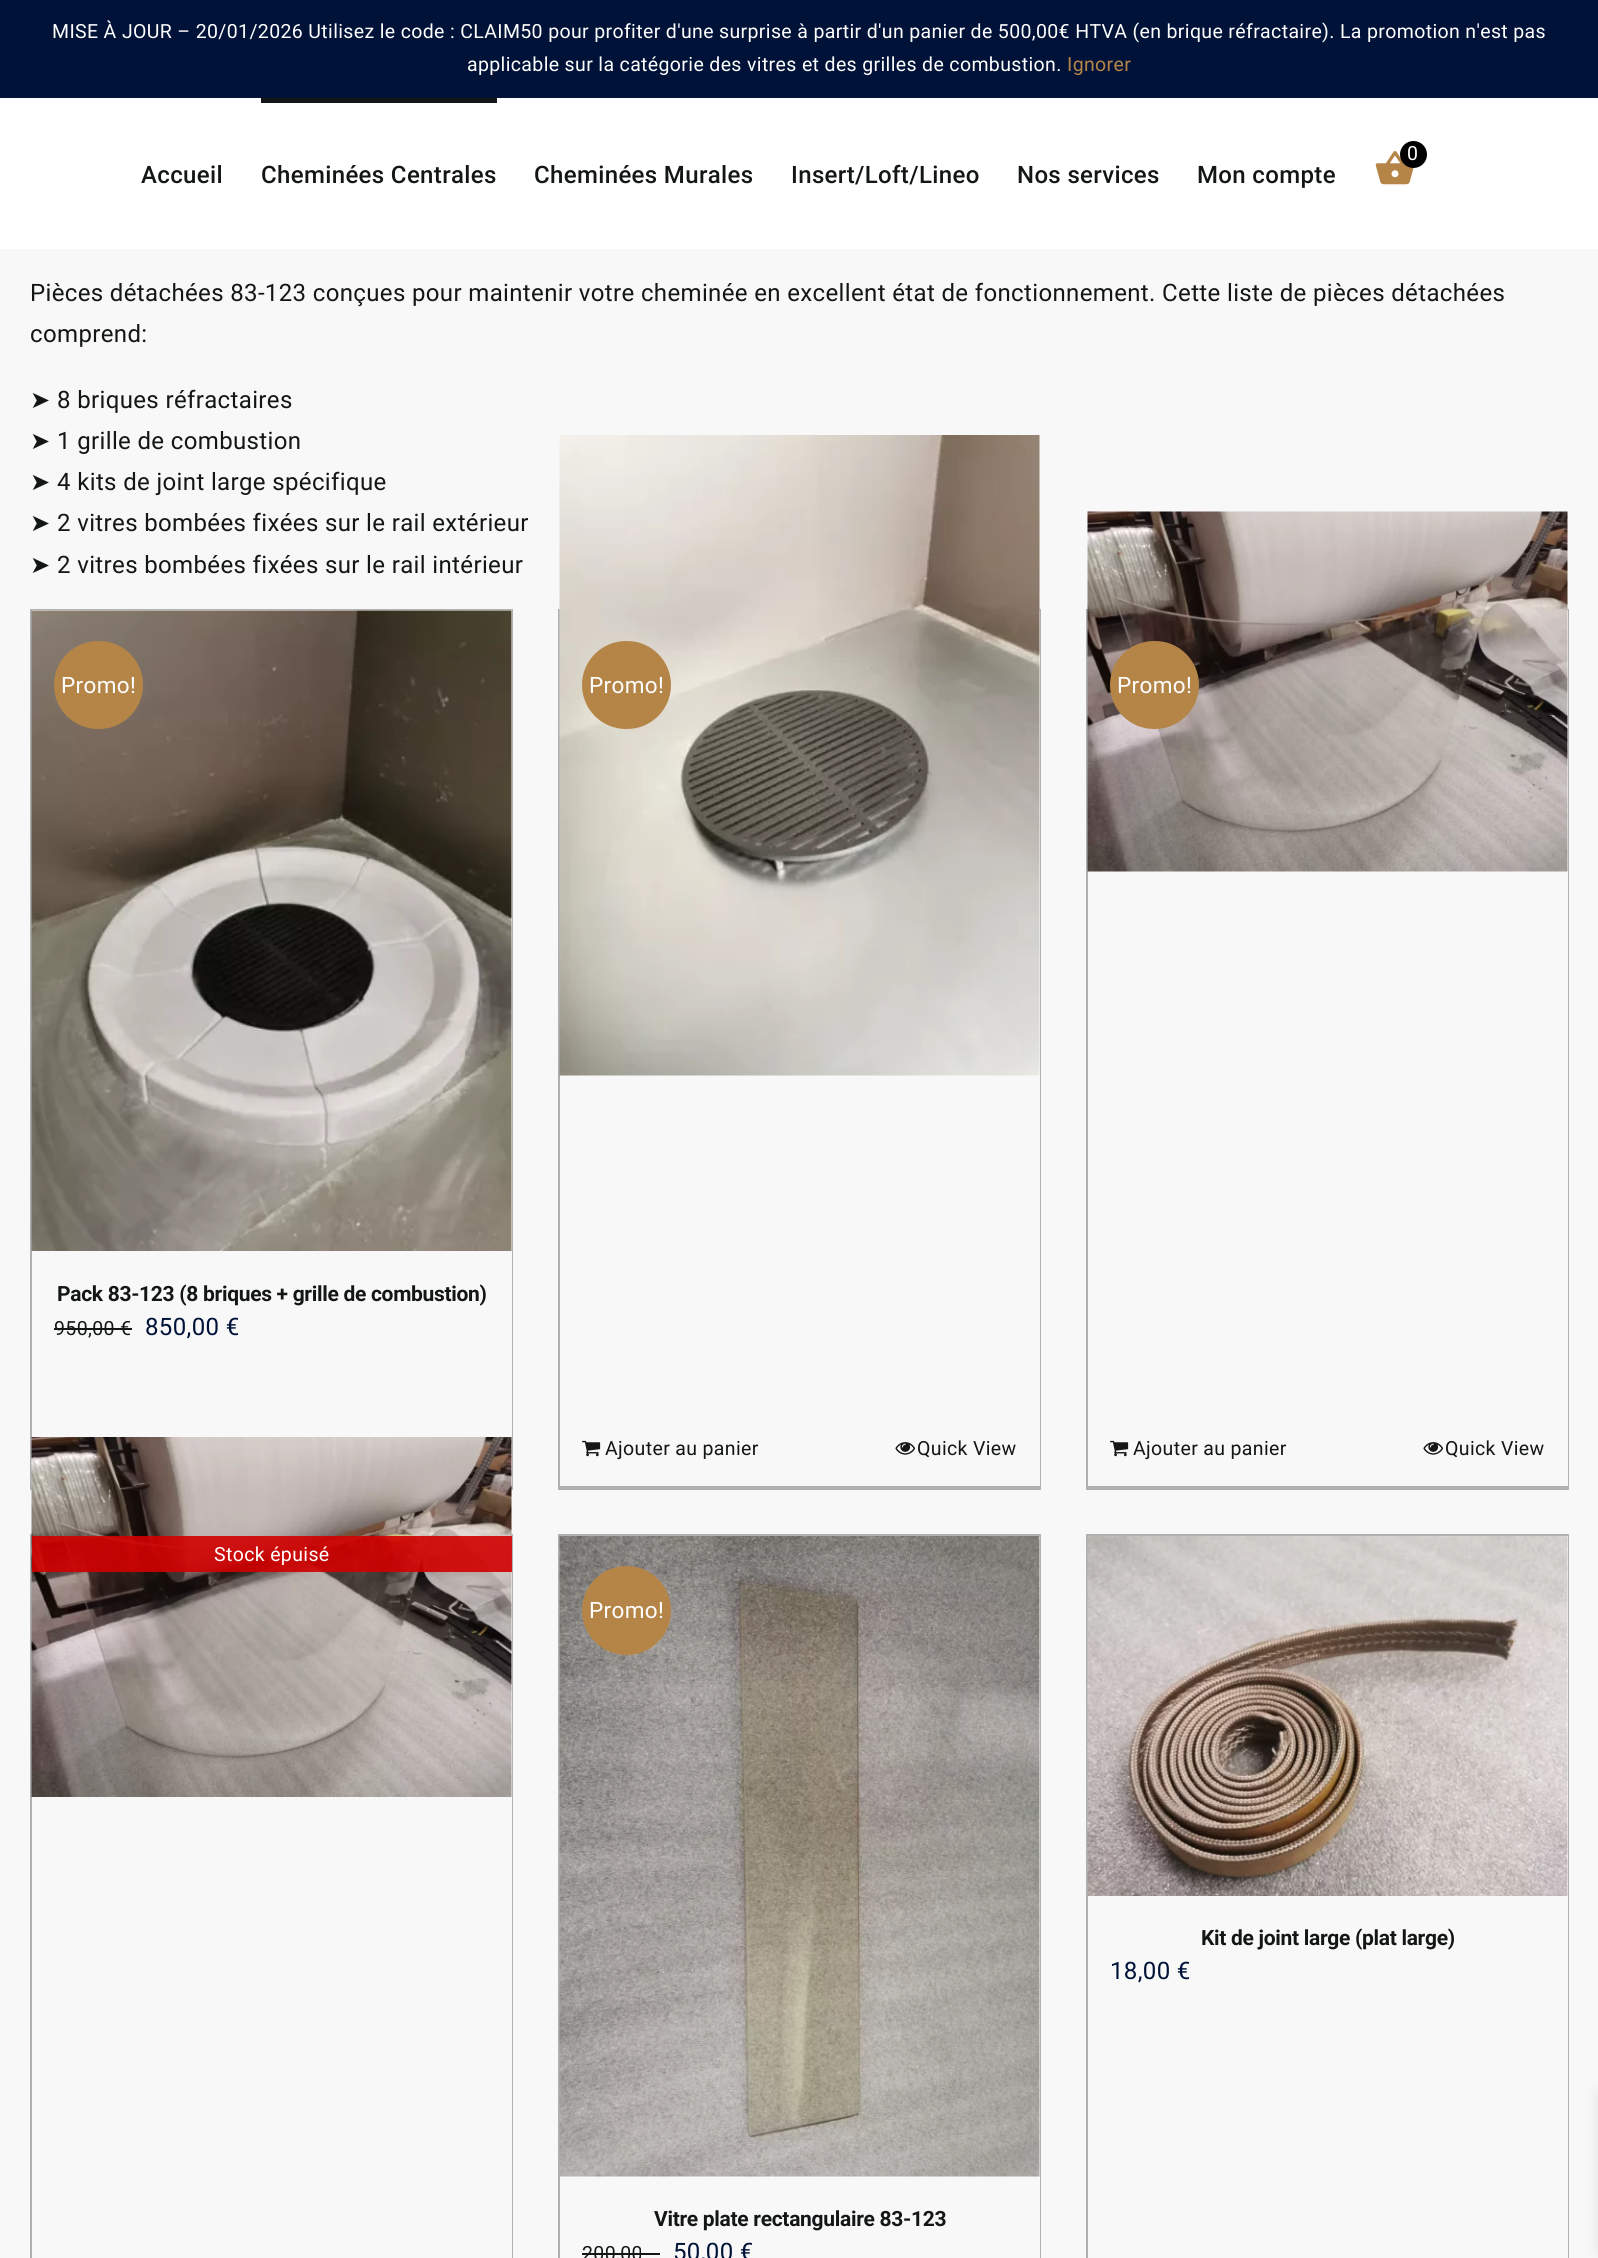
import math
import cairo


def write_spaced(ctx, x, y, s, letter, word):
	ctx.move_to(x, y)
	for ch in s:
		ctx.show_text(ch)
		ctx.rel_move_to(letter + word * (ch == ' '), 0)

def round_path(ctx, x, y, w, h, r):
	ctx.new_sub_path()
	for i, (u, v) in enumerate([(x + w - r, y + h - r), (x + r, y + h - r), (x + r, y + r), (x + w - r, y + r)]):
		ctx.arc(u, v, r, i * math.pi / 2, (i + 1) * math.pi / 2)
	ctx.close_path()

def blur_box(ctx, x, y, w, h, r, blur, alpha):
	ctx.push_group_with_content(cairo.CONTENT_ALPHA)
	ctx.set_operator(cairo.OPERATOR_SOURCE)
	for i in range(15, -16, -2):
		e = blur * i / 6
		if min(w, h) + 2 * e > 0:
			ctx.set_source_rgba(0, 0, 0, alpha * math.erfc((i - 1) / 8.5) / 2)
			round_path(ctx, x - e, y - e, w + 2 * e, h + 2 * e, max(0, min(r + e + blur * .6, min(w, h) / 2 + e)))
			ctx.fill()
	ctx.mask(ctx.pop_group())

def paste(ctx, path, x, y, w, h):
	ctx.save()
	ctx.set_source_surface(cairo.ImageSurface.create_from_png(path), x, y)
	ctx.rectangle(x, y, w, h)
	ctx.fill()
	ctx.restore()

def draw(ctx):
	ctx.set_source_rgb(0.976, 0.969, 0.969)
	ctx.paint()
	ctx.set_source_rgb(0, 0.071, 0.22)
	ctx.rectangle(0, 0, 1598, 98)
	ctx.fill()
	ctx.select_font_face('Roboto')
	ctx.set_font_size(19.5)
	ctx.set_source_rgb(1, 1, 1)
	write_spaced(ctx, 52, 38, 'MISE À JOUR – 20/01/2026 Utilisez le code : CLAIM50 pour profiter d\'une surprise à partir d\'un panier de 500,00€ HTVA (en brique réfractaire). La promotion n\'est pas', 0.36, 0)
	write_spaced(ctx, 467, 71, 'applicable sur la catégorie des vitres et des grilles de combustion.', 0.36, 0)
	ctx.set_source_rgb(0.71, 0.522, 0.282)
	write_spaced(ctx, 1067, 71, 'Ignorer', 0.36, 0)
	ctx.set_source_rgb(1, 1, 1)
	ctx.rectangle(0, 98, 1598, 151)
	ctx.fill()
	paste(ctx, 'media/1.png', 1375, 151, 39, 34)
	ctx.set_source_rgb(0, 0, 0)
	ctx.arc(1413.5, 154.5, 13.5, 0, 2 * math.pi)
	ctx.fill()
	ctx.set_source_rgb(1, 1, 1)
	write_spaced(ctx, 1407, 160, '0', 0.36, 0)
	ctx.select_font_face('Roboto Medium')
	ctx.set_font_size(24)
	ctx.set_source_rgb(0.078, 0.086, 0.09)
	write_spaced(ctx, 141, 183, 'Accueil', 0.36, 0)
	ctx.rectangle(261, 98, 236, 5)
	ctx.fill()
	for x, y, s in [
		(261, 183, 'Cheminées Centrales'),
		(534, 183, 'Cheminées Murales'),
		(791, 183, 'Insert/Loft/Lineo'),
		(1017, 183, 'Nos services'),
		(1197, 183, 'Mon compte'),
	]:
		write_spaced(ctx, x, y, s, 0.36, 0)
	ctx.select_font_face('Roboto')
	write_spaced(ctx, 30, 301, 'Pièces détachées 83-123 conçues pour maintenir votre cheminée en excellent état de fonctionnement. Cette liste de pièces détachées', 0.36, 0)
	write_spaced(ctx, 30, 342, 'comprend:', 0.36, 0)
	ctx.select_font_face('DejaVu Sans')
	write_spaced(ctx, 30, 408, '➤', 0.36, 0)
	ctx.select_font_face('Roboto')
	write_spaced(ctx, 57, 408, '8 briques réfractaires', 0.36, 0)
	ctx.select_font_face('DejaVu Sans')
	write_spaced(ctx, 30, 449, '➤', 0.36, 0)
	ctx.select_font_face('Roboto')
	write_spaced(ctx, 57, 449, '1 grille de combustion', 0.36, 0)
	ctx.select_font_face('DejaVu Sans')
	write_spaced(ctx, 30, 490, '➤', 0.36, 0)
	ctx.select_font_face('Roboto')
	write_spaced(ctx, 57, 490, '4 kits de joint large spécifique', 0.36, 0)
	ctx.select_font_face('DejaVu Sans')
	write_spaced(ctx, 30, 531, '➤', 0.36, 0)
	ctx.select_font_face('Roboto')
	write_spaced(ctx, 57, 531, '2 vitres bombées fixées sur le rail extérieur', 0.36, 0)
	ctx.select_font_face('DejaVu Sans')
	write_spaced(ctx, 30, 573, '➤', 0.36, 0)
	ctx.select_font_face('Roboto')
	write_spaced(ctx, 57, 573, '2 vitres bombées fixées sur le rail intérieur', 0.36, 0)
	ctx.set_source_rgb(0.694, 0.686, 0.686)
	ctx.new_path()
	ctx.move_to(30, 609)
	ctx.line_to(513, 609)
	ctx.line_to(512, 610)
	ctx.line_to(32, 610)
	ctx.close_path()
	ctx.fill()
	ctx.set_source_rgba(0.008, 0, 0, 0.29)
	ctx.new_path()
	ctx.move_to(513, 609)
	ctx.line_to(513, 1490)
	ctx.line_to(512, 1486)
	ctx.line_to(512, 610)
	ctx.close_path()
	ctx.fill()
	ctx.new_path()
	ctx.move_to(513, 1490)
	ctx.line_to(30, 1490)
	ctx.line_to(32, 1486)
	ctx.line_to(512, 1486)
	ctx.close_path()
	ctx.fill()
	ctx.new_path()
	ctx.move_to(30, 1490)
	ctx.line_to(30, 609)
	ctx.line_to(32, 610)
	ctx.line_to(32, 1486)
	ctx.close_path()
	ctx.fill()
	paste(ctx, 'media/2.png', 31, 610, 481, 641)
	ctx.set_source_rgb(0.71, 0.522, 0.282)
	round_path(ctx, 54, 641, 89, 88, 44)
	ctx.fill()
	ctx.set_font_size(22.5)
	ctx.set_source_rgb(1, 1, 1)
	write_spaced(ctx, 61, 693, 'Promo!', 0.36, 0)
	ctx.select_font_face('Roboto', cairo.FONT_SLANT_NORMAL, cairo.FONT_WEIGHT_BOLD)
	ctx.set_font_size(21)
	ctx.set_source_rgb(0.078, 0.086, 0.09)
	write_spaced(ctx, 57, 1301, 'Pack 83-123 (8 briques + grille de combustion)', -0.3, 0)
	ctx.select_font_face('Roboto')
	ctx.set_font_size(19.5)
	write_spaced(ctx, 54, 1335, '950,00 €', 0.36, 0)
	ctx.rectangle(54, 1328, 78, 2)
	ctx.fill()
	ctx.set_font_size(24)
	ctx.set_source_rgb(0, 0.071, 0.22)
	write_spaced(ctx, 145, 1335, '850,00 €', 0.36, 0)
	ctx.set_source_rgb(0.694, 0.686, 0.686)
	ctx.new_path()
	ctx.move_to(558, 609)
	ctx.line_to(1041, 609)
	ctx.line_to(1040, 610)
	ctx.line_to(560, 610)
	ctx.close_path()
	ctx.fill()
	ctx.set_source_rgba(0.008, 0, 0, 0.29)
	ctx.new_path()
	ctx.move_to(1041, 609)
	ctx.line_to(1041, 1490)
	ctx.line_to(1040, 1486)
	ctx.line_to(1040, 610)
	ctx.close_path()
	ctx.fill()
	ctx.new_path()
	ctx.move_to(1041, 1490)
	ctx.line_to(558, 1490)
	ctx.line_to(560, 1486)
	ctx.line_to(1040, 1486)
	ctx.close_path()
	ctx.fill()
	ctx.new_path()
	ctx.move_to(558, 1490)
	ctx.line_to(558, 609)
	ctx.line_to(560, 610)
	ctx.line_to(560, 1486)
	ctx.close_path()
	ctx.fill()
	paste(ctx, 'media/3.png', 559, 435, 481, 641)
	ctx.set_source_rgb(0.71, 0.522, 0.282)
	round_path(ctx, 582, 641, 89, 88, 44)
	ctx.fill()
	ctx.set_font_size(22.5)
	ctx.set_source_rgb(1, 1, 1)
	write_spaced(ctx, 589, 693, 'Promo!', 0.36, 0)
	paste(ctx, 'media/4.png', 582, 1440, 19, 17)
	ctx.set_font_size(19.5)
	ctx.set_source_rgb(0.078, 0.086, 0.09)
	write_spaced(ctx, 605, 1455, 'Ajouter au panier', 0.36, 0)
	paste(ctx, 'media/5.png', 895, 1442, 20, 13)
	write_spaced(ctx, 917, 1455, 'Quick View', 0.36, 0)
	ctx.set_source_rgb(0.694, 0.686, 0.686)
	ctx.new_path()
	ctx.move_to(1086, 609)
	ctx.line_to(1569, 609)
	ctx.line_to(1568, 610)
	ctx.line_to(1088, 610)
	ctx.close_path()
	ctx.fill()
	ctx.set_source_rgba(0.008, 0, 0, 0.29)
	ctx.new_path()
	ctx.move_to(1569, 609)
	ctx.line_to(1569, 1490)
	ctx.line_to(1568, 1486)
	ctx.line_to(1568, 610)
	ctx.close_path()
	ctx.fill()
	ctx.new_path()
	ctx.move_to(1569, 1490)
	ctx.line_to(1086, 1490)
	ctx.line_to(1088, 1486)
	ctx.line_to(1568, 1486)
	ctx.close_path()
	ctx.fill()
	ctx.new_path()
	ctx.move_to(1086, 1490)
	ctx.line_to(1086, 609)
	ctx.line_to(1088, 610)
	ctx.line_to(1088, 1486)
	ctx.close_path()
	ctx.fill()
	paste(ctx, 'media/6.png', 1087, 511, 481, 361)
	ctx.set_source_rgb(0.71, 0.522, 0.282)
	round_path(ctx, 1110, 641, 89, 88, 44)
	ctx.fill()
	ctx.set_font_size(22.5)
	ctx.set_source_rgb(1, 1, 1)
	write_spaced(ctx, 1117, 693, 'Promo!', 0.36, 0)
	paste(ctx, 'media/4.png', 1110, 1440, 19, 17)
	ctx.set_font_size(19.5)
	ctx.set_source_rgb(0.078, 0.086, 0.09)
	write_spaced(ctx, 1133, 1455, 'Ajouter au panier', 0.36, 0)
	paste(ctx, 'media/5.png', 1423, 1442, 20, 13)
	write_spaced(ctx, 1445, 1455, 'Quick View', 0.36, 0)
	ctx.set_source_rgb(0.694, 0.686, 0.686)
	ctx.new_path()
	ctx.move_to(30, 1534)
	ctx.line_to(513, 1534)
	ctx.line_to(512, 1536)
	ctx.line_to(32, 1536)
	ctx.close_path()
	ctx.fill()
	ctx.set_source_rgba(0.008, 0, 0, 0.29)
	ctx.new_path()
	ctx.move_to(513, 1534)
	ctx.line_to(513, 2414)
	ctx.line_to(512, 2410)
	ctx.line_to(512, 1536)
	ctx.close_path()
	ctx.fill()
	ctx.new_path()
	ctx.move_to(30, 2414)
	ctx.line_to(30, 1534)
	ctx.line_to(32, 1536)
	ctx.line_to(32, 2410)
	ctx.close_path()
	ctx.fill()
	paste(ctx, 'media/7.png', 31, 1437, 481, 360)
	ctx.set_source_rgba(0.824, 0, 0, 0.9)
	ctx.rectangle(32, 1536, 480, 36)
	ctx.fill()
	ctx.set_source_rgb(1, 1, 1)
	write_spaced(ctx, 214, 1561, 'Stock épuisé', 0.36, 0)
	ctx.set_source_rgb(0.694, 0.686, 0.686)
	ctx.new_path()
	ctx.move_to(558, 1534)
	ctx.line_to(1041, 1534)
	ctx.line_to(1040, 1536)
	ctx.line_to(560, 1536)
	ctx.close_path()
	ctx.fill()
	ctx.set_source_rgba(0.008, 0, 0, 0.29)
	ctx.new_path()
	ctx.move_to(1041, 1534)
	ctx.line_to(1041, 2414)
	ctx.line_to(1040, 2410)
	ctx.line_to(1040, 1536)
	ctx.close_path()
	ctx.fill()
	ctx.new_path()
	ctx.move_to(558, 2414)
	ctx.line_to(558, 1534)
	ctx.line_to(560, 1536)
	ctx.line_to(560, 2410)
	ctx.close_path()
	ctx.fill()
	paste(ctx, 'media/8.png', 559, 1536, 481, 641)
	ctx.set_source_rgb(0.71, 0.522, 0.282)
	ctx.arc(626.5, 1610.5, 44.5, 0, 2 * math.pi)
	ctx.fill()
	ctx.set_font_size(22.5)
	ctx.set_source_rgb(1, 1, 1)
	write_spaced(ctx, 589, 1618, 'Promo!', 0.36, 0)
	ctx.select_font_face('Roboto', cairo.FONT_SLANT_NORMAL, cairo.FONT_WEIGHT_BOLD)
	ctx.set_font_size(21)
	ctx.set_source_rgb(0.078, 0.086, 0.09)
	write_spaced(ctx, 654, 2226, 'Vitre plate rectangulaire 83-123', -0.3, 0)
	ctx.select_font_face('Roboto')
	ctx.set_font_size(19.5)
	write_spaced(ctx, 582, 2260, '200,00', 0.36, 0)
	ctx.rectangle(582, 2253, 78, 2)
	ctx.fill()
	ctx.set_font_size(24)
	ctx.set_source_rgb(0, 0.071, 0.22)
	write_spaced(ctx, 673, 2260, '50,00 €', 0.36, 0)
	ctx.set_source_rgb(0.694, 0.686, 0.686)
	ctx.new_path()
	ctx.move_to(1086, 1534)
	ctx.line_to(1569, 1534)
	ctx.line_to(1568, 1536)
	ctx.line_to(1088, 1536)
	ctx.close_path()
	ctx.fill()
	ctx.set_source_rgba(0.008, 0, 0, 0.29)
	ctx.new_path()
	ctx.move_to(1569, 1534)
	ctx.line_to(1569, 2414)
	ctx.line_to(1568, 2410)
	ctx.line_to(1568, 1536)
	ctx.close_path()
	ctx.fill()
	ctx.new_path()
	ctx.move_to(1086, 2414)
	ctx.line_to(1086, 1534)
	ctx.line_to(1088, 1536)
	ctx.line_to(1088, 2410)
	ctx.close_path()
	ctx.fill()
	paste(ctx, 'media/9.png', 1087, 1536, 481, 360)
	ctx.select_font_face('Roboto', cairo.FONT_SLANT_NORMAL, cairo.FONT_WEIGHT_BOLD)
	ctx.set_font_size(21)
	ctx.set_source_rgb(0.078, 0.086, 0.09)
	write_spaced(ctx, 1201, 1945, 'Kit de joint large (plat large)', -0.3, 0)
	ctx.select_font_face('Roboto')
	ctx.set_font_size(24)
	ctx.set_source_rgb(0, 0.071, 0.22)
	write_spaced(ctx, 1110, 1979, '18,00 €', 0.36, 0)
	ctx.set_source_rgb(0, 0, 0)
	blur_box(ctx, 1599, 2094, 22, 158, 0, 7.5, 0.1)


surface = cairo.ImageSurface(cairo.FORMAT_RGB24, 1598, 2258)
ctx = cairo.Context(surface)
options = cairo.FontOptions()
options.set_hint_metrics(cairo.HINT_METRICS_OFF)
options.set_hint_style(cairo.HINT_STYLE_NONE)
ctx.set_font_options(options)
ctx.set_miter_limit(4)
draw(ctx)
surface.write_to_png('image.png')
